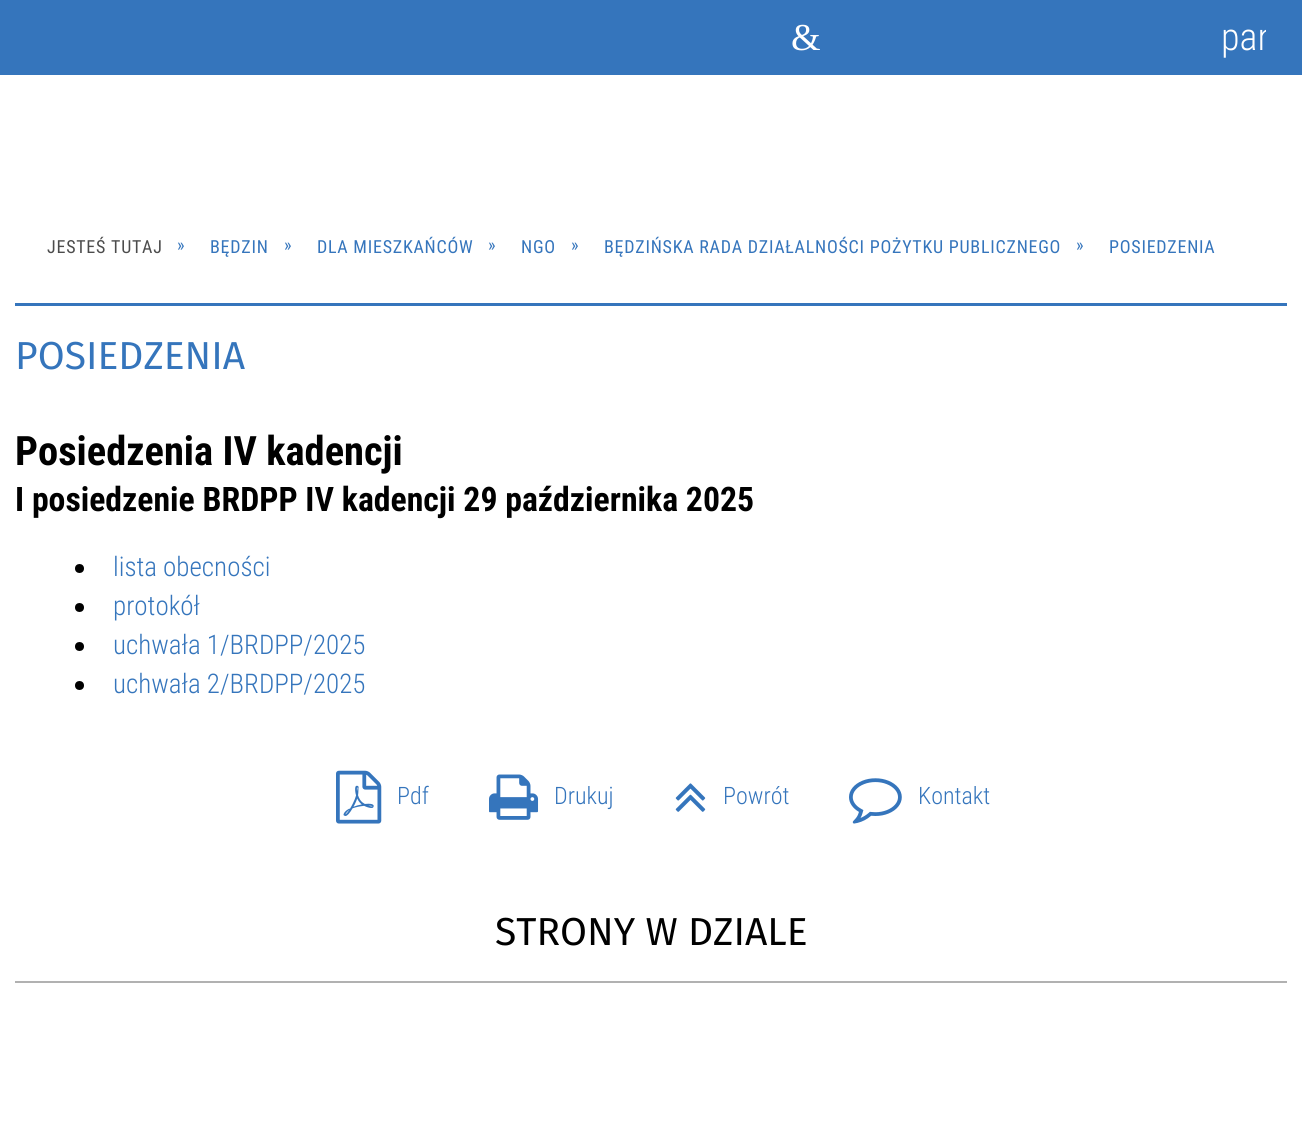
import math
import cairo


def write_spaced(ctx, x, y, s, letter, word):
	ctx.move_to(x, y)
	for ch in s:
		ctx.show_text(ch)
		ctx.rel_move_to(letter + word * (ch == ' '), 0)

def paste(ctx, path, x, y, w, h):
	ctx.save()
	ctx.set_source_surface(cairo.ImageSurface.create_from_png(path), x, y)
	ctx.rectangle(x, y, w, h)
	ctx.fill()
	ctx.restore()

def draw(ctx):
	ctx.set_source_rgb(1, 1, 1)
	ctx.paint()
	ctx.set_source_rgb(0.208, 0.459, 0.737)
	ctx.rectangle(0, 0, 1302, 75)
	ctx.fill()
	ctx.select_font_face('Liberation Serif')
	ctx.set_font_size(38)
	ctx.set_source_rgb(1, 1, 1)
	ctx.move_to(791, 50)
	ctx.show_text('&')
	ctx.save()
	ctx.rectangle(1221, 15, 45, 45)
	ctx.clip()
	ctx.select_font_face('Roboto Condensed Light')
	ctx.move_to(1221, 50)
	ctx.show_text('pan')
	ctx.restore()
	ctx.select_font_face('Roboto Condensed')
	ctx.set_font_size(18)
	ctx.set_source_rgb(0.298, 0.298, 0.298)
	write_spaced(ctx, 47, 253, 'JESTEŚ TUTAJ', 0.75, 0)
	ctx.set_source_rgb(0.208, 0.459, 0.737)
	for x, y, s in [
		(177, 251, '»'),
		(210, 253, 'BĘDZIN'),
		(284, 251, '»'),
		(317, 253, 'DLA MIESZKAŃCÓW'),
		(488, 251, '»'),
		(521, 253, 'NGO'),
		(571, 251, '»'),
		(604, 253, 'BĘDZIŃSKA RADA DZIAŁALNOŚCI POŻYTKU PUBLICZNEGO'),
		(1076, 251, '»'),
		(1109, 253, 'POSIEDZENIA'),
	]:
		write_spaced(ctx, x, y, s, 0.75, 0)
	ctx.rectangle(15, 303, 1272, 3)
	ctx.fill()
	ctx.select_font_face('Fira Sans')
	ctx.set_font_size(39)
	ctx.move_to(15, 369)
	ctx.show_text('POSIEDZENIA')
	ctx.select_font_face('Roboto Condensed', cairo.FONT_SLANT_NORMAL, cairo.FONT_WEIGHT_BOLD)
	ctx.set_font_size(40.5)
	ctx.set_source_rgb(0, 0, 0)
	ctx.move_to(15, 465)
	ctx.show_text('Posiedzenia IV kadencji')
	ctx.set_font_size(33.75)
	ctx.move_to(15, 511)
	ctx.show_text('I posiedzenie BRDPP IV kadencji 29 października 2025')
	ctx.new_path()
	ctx.arc(79.5, 568.5, 4.5, 0, 2 * math.pi)
	ctx.fill()
	ctx.select_font_face('Roboto Condensed Light')
	ctx.set_font_size(27)
	ctx.set_source_rgb(0.208, 0.459, 0.737)
	ctx.move_to(113, 576)
	ctx.show_text('lista obecności')
	ctx.set_source_rgb(0, 0, 0)
	ctx.new_path()
	ctx.arc(79.5, 607.5, 4.5, 0, 2 * math.pi)
	ctx.fill()
	ctx.set_source_rgb(0.208, 0.459, 0.737)
	ctx.move_to(113, 615)
	ctx.show_text('protokół')
	ctx.set_source_rgb(0, 0, 0)
	ctx.new_path()
	ctx.arc(79.5, 646.5, 4.5, 0, 2 * math.pi)
	ctx.fill()
	ctx.set_source_rgb(0.208, 0.459, 0.737)
	ctx.move_to(113, 654)
	ctx.show_text('uchwała 1/BRDPP/2025')
	ctx.set_source_rgb(0, 0, 0)
	ctx.new_path()
	ctx.arc(79.5, 685.5, 4.5, 0, 2 * math.pi)
	ctx.fill()
	ctx.set_source_rgb(0.208, 0.459, 0.737)
	ctx.move_to(113, 693)
	ctx.show_text('uchwała 2/BRDPP/2025')
	paste(ctx, 'media/1.png', 336, 770, 46, 54)
	ctx.set_font_size(24)
	ctx.move_to(397, 804)
	ctx.show_text('Pdf')
	paste(ctx, 'media/2.png', 489, 774, 50, 46)
	ctx.move_to(554, 804)
	ctx.show_text('Drukuj')
	paste(ctx, 'media/3.png', 675, 783, 31, 29)
	ctx.move_to(723, 804)
	ctx.show_text('Powrót')
	paste(ctx, 'media/4.png', 849, 778, 53, 46)
	ctx.move_to(918, 804)
	ctx.show_text('Kontakt')
	ctx.set_source_rgb(0.694, 0.694, 0.694)
	ctx.rectangle(15, 981, 1272, 2)
	ctx.fill()
	ctx.select_font_face('Fira Sans')
	ctx.set_font_size(39)
	ctx.set_source_rgb(0, 0, 0)
	ctx.move_to(495, 945)
	ctx.show_text('STRONY W DZIALE')


surface = cairo.ImageSurface(cairo.FORMAT_RGB24, 1302, 1127)
ctx = cairo.Context(surface)
options = cairo.FontOptions()
options.set_hint_metrics(cairo.HINT_METRICS_OFF)
options.set_hint_style(cairo.HINT_STYLE_NONE)
ctx.set_font_options(options)
ctx.set_miter_limit(4)
draw(ctx)
surface.write_to_png('image.png')
